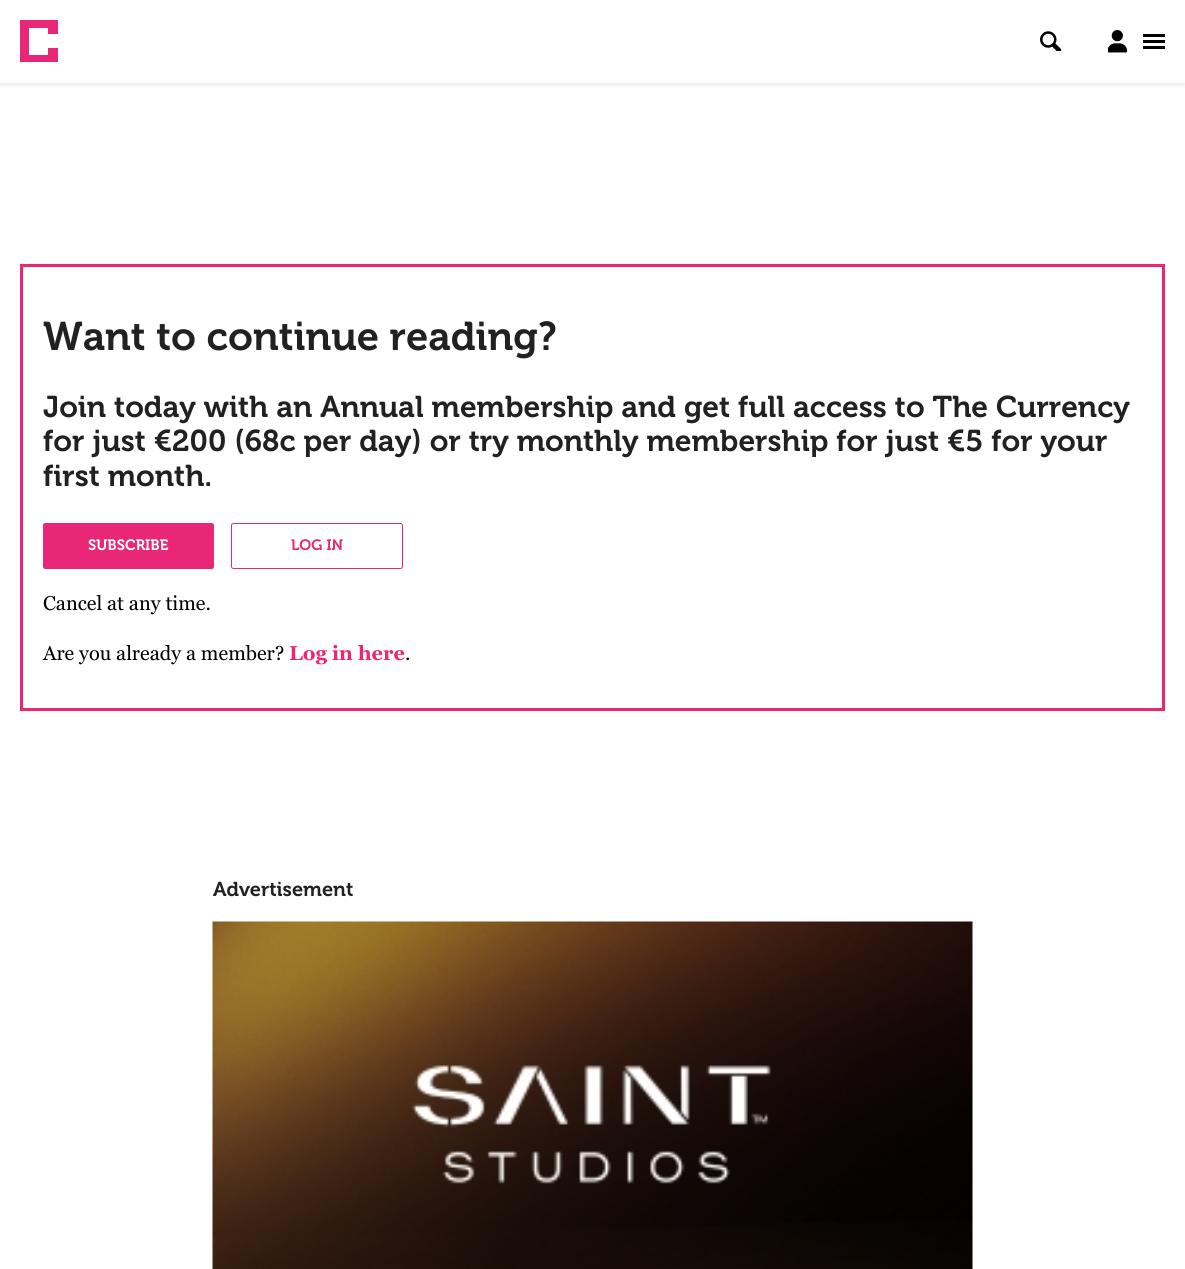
import math
import cairo


def round_path(ctx, x, y, w, h, r):
	ctx.new_sub_path()
	for i, (u, v) in enumerate([(x + w - r, y + h - r), (x + r, y + h - r), (x + r, y + r), (x + w - r, y + r)]):
		ctx.arc(u, v, r, i * math.pi / 2, (i + 1) * math.pi / 2)
	ctx.close_path()

def blur_box(ctx, x, y, w, h, r, blur, alpha):
	ctx.push_group_with_content(cairo.CONTENT_ALPHA)
	ctx.set_operator(cairo.OPERATOR_SOURCE)
	for i in range(15, -16, -2):
		e = blur * i / 6
		if min(w, h) + 2 * e > 0:
			ctx.set_source_rgba(0, 0, 0, alpha * math.erfc((i - 1) / 8.5) / 2)
			round_path(ctx, x - e, y - e, w + 2 * e, h + 2 * e, max(0, min(r + e + blur * .6, min(w, h) / 2 + e)))
			ctx.fill()
	ctx.mask(ctx.pop_group())

def paste(ctx, path, x, y, w, h):
	ctx.save()
	ctx.set_source_surface(cairo.ImageSurface.create_from_png(path), x, y)
	ctx.rectangle(x, y, w, h)
	ctx.fill()
	ctx.restore()

def draw(ctx):
	ctx.set_source_rgb(1, 1, 1)
	ctx.paint()
	ctx.set_source_rgb(0, 0, 0)
	blur_box(ctx, 0, 3, 1185, 82, 0, 2.5, 0.09)
	ctx.set_source_rgb(1, 1, 1)
	ctx.rectangle(0, 0, 1185, 83)
	ctx.fill()
	ctx.set_source_rgb(0.91, 0.153, 0.467)
	ctx.new_path()
	ctx.move_to(58, 62)
	ctx.line_to(58, 48)
	ctx.line_to(48, 48)
	ctx.line_to(48, 55)
	ctx.line_to(29, 55)
	ctx.line_to(29, 28)
	ctx.line_to(48, 28)
	ctx.line_to(48, 34)
	ctx.line_to(58, 34)
	ctx.line_to(58, 20)
	ctx.line_to(20, 20)
	ctx.line_to(20, 62)
	ctx.close_path()
	ctx.fill()
	paste(ctx, 'media/1.png', 1040, 31, 22, 20)
	paste(ctx, 'media/2.png', 1108, 30, 20, 23)
	ctx.set_source_rgb(0, 0, 0)
	ctx.rectangle(1143, 40, 22, 3)
	ctx.rectangle(1143, 34, 22, 3)
	ctx.rectangle(1143, 46, 22, 3)
	ctx.fill()
	ctx.rectangle(21.5, 265.5, 1142, 444)
	ctx.set_source_rgb(0.91, 0.153, 0.467)
	ctx.set_line_width(3)
	ctx.stroke()
	ctx.select_font_face('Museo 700 SemiBold')
	ctx.set_font_size(40)
	ctx.set_source_rgb(0.129, 0.129, 0.129)
	ctx.move_to(43, 350)
	ctx.show_text('Want to continue reading?')
	ctx.set_font_size(30)
	for x, y, s in [
		(43, 417, 'Join today with an Annual membership and get full access to The Currency'),
		(43, 451, 'for just €200 (68c per day) or try monthly membership for just €5 for your'),
		(43, 486, 'first month.'),
	]:
		ctx.move_to(x, y)
		ctx.show_text(s)
	ctx.set_source_rgb(0.91, 0.153, 0.467)
	round_path(ctx, 43.5, 523.5, 170, 45, 2)
	ctx.fill_preserve()
	ctx.set_line_width(1)
	ctx.stroke()
	ctx.set_font_size(15)
	ctx.set_source_rgb(1, 1, 1)
	ctx.move_to(88, 550)
	ctx.show_text('SUBSCRIBE')
	round_path(ctx, 231.5, 523.5, 171, 45, 2)
	ctx.set_source_rgb(0.91, 0.153, 0.467)
	ctx.stroke()
	ctx.move_to(291, 550)
	ctx.show_text('LOG IN')
	ctx.select_font_face('Georgia')
	ctx.set_font_size(20)
	ctx.set_source_rgb(0, 0, 0)
	ctx.move_to(43, 610)
	ctx.show_text('Cancel at any time.')
	ctx.move_to(43, 660)
	ctx.show_text('Are you already a member?')
	ctx.select_font_face('Georgia', cairo.FONT_SLANT_NORMAL, cairo.FONT_WEIGHT_BOLD)
	ctx.set_source_rgb(0.91, 0.153, 0.467)
	ctx.move_to(289, 660)
	ctx.show_text('Log in here')
	ctx.select_font_face('Georgia')
	ctx.set_source_rgb(0, 0, 0)
	ctx.move_to(405, 660)
	ctx.show_text('.')
	ctx.select_font_face('Museo 700 SemiBold')
	ctx.set_source_rgb(0.129, 0.129, 0.129)
	ctx.move_to(213, 896)
	ctx.show_text('Advertisement')
	paste(ctx, 'media/3.png', 212, 921, 761, 348)


surface = cairo.ImageSurface(cairo.FORMAT_RGB24, 1185, 1269)
ctx = cairo.Context(surface)
options = cairo.FontOptions()
options.set_hint_metrics(cairo.HINT_METRICS_OFF)
options.set_hint_style(cairo.HINT_STYLE_NONE)
ctx.set_font_options(options)
ctx.set_miter_limit(4)
draw(ctx)
surface.write_to_png('image.png')
